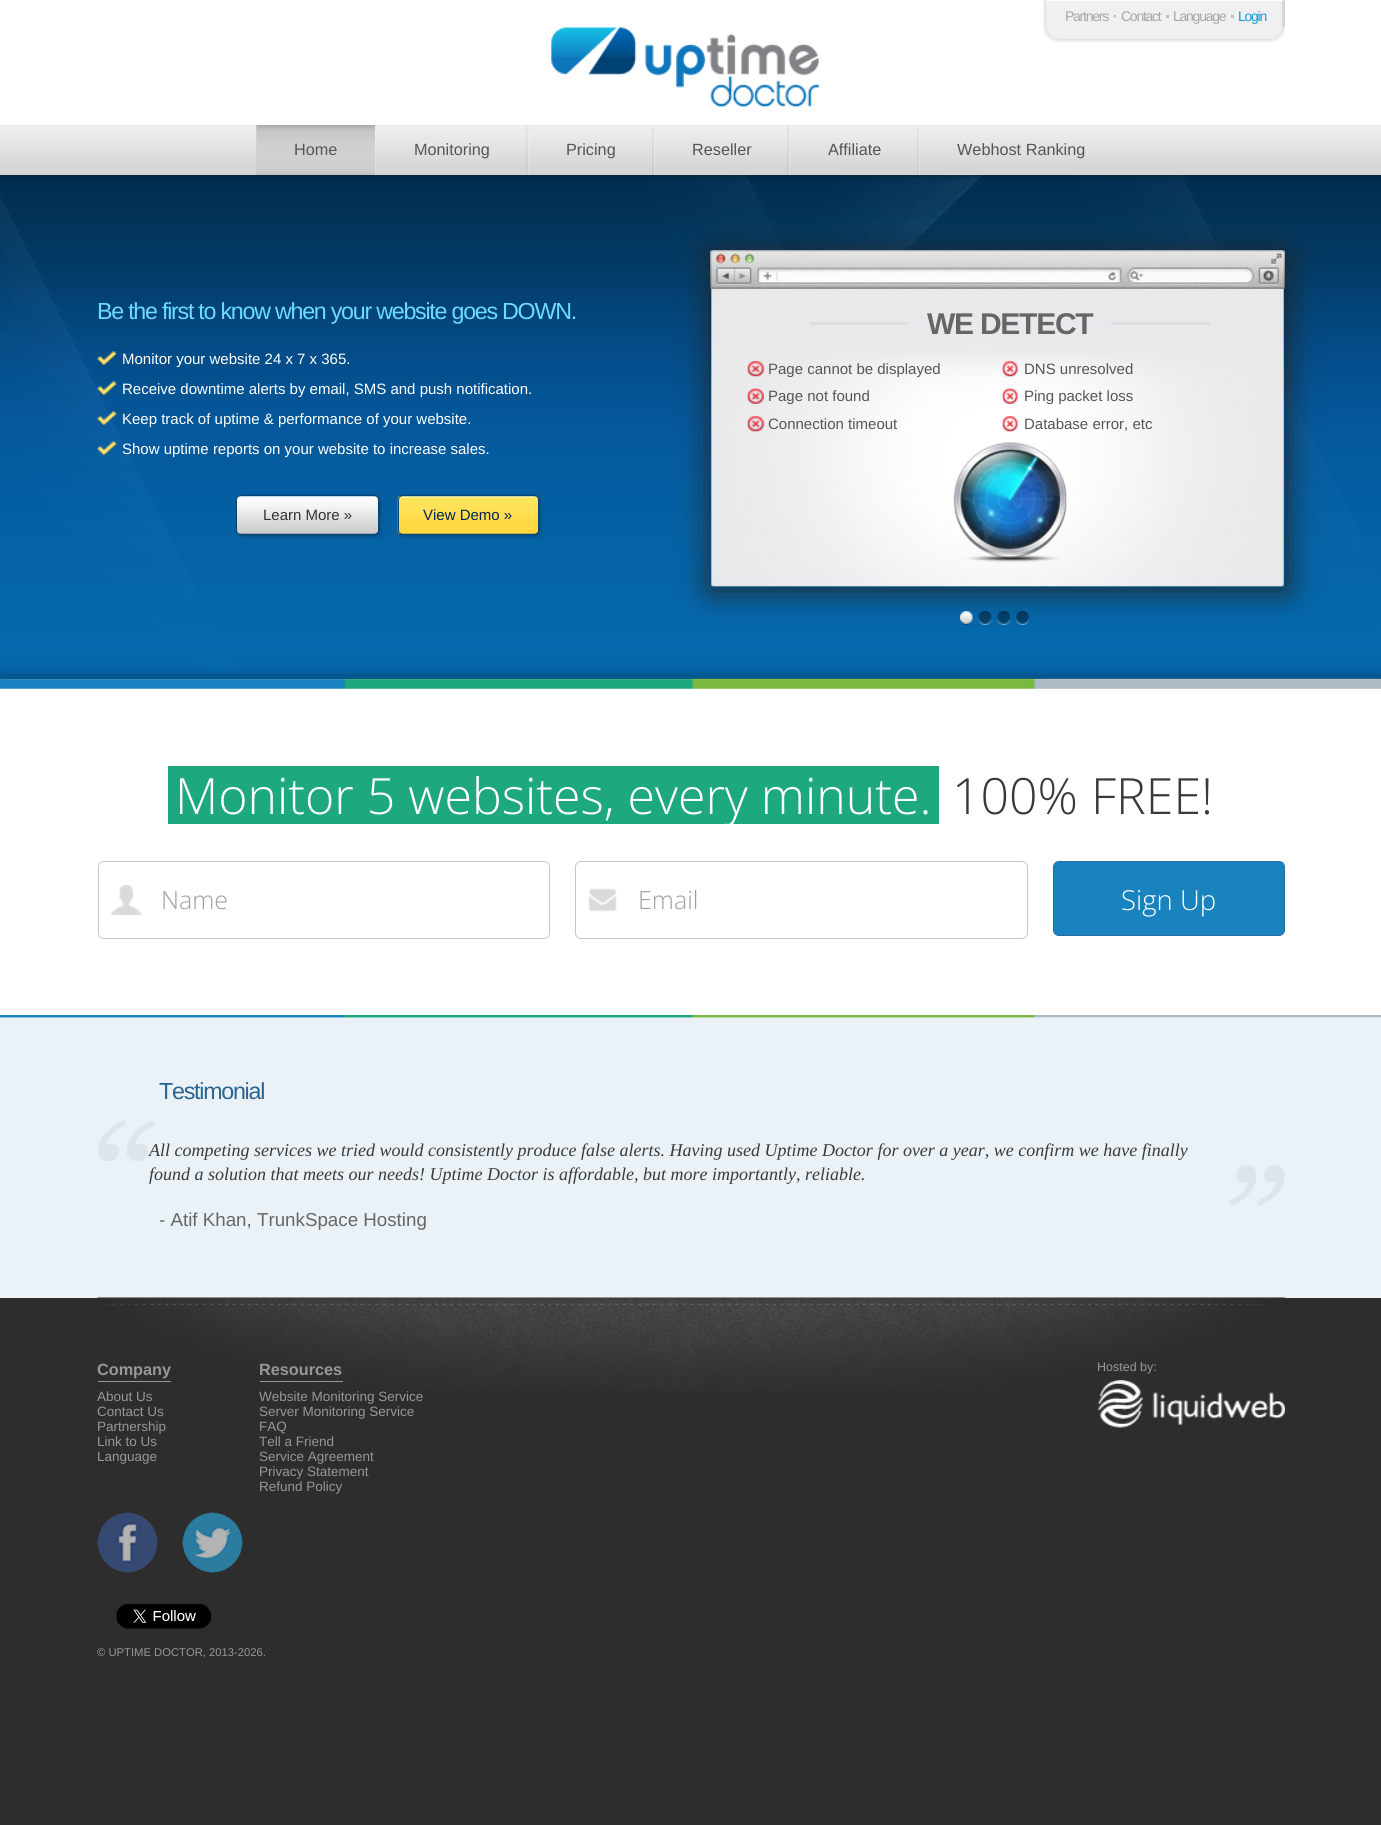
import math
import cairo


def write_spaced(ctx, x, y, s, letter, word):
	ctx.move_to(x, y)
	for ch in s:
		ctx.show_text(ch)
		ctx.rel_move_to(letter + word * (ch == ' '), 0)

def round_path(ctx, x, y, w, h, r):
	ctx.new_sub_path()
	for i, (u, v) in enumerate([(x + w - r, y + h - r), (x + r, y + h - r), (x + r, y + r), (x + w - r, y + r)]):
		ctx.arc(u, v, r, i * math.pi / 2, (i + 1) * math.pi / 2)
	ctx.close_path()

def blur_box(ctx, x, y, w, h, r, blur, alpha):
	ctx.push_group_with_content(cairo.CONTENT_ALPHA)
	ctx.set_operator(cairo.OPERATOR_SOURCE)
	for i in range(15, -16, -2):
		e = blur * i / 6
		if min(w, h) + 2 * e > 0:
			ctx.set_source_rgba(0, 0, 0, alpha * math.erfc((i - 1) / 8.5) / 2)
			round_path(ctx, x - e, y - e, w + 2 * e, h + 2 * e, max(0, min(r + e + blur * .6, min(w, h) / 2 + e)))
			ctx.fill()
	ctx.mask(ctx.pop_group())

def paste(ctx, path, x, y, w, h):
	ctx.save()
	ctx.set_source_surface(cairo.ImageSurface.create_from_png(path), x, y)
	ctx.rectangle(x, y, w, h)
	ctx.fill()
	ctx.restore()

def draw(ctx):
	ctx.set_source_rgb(0.176, 0.176, 0.176)
	ctx.paint()
	paste(ctx, 'media/1.png', 0, 0, 1381, 175)
	paste(ctx, 'media/2.png', 1043, 0, 239, 27)
	ctx.set_source_rgb(0.839, 0.839, 0.839)
	ctx.rectangle(1282, 0, 3, 27)
	ctx.fill()
	ctx.set_source_rgb(1, 1, 1)
	ctx.rectangle(1046, 0, 237, 1)
	ctx.fill()
	ctx.select_font_face('Liberation Sans')
	ctx.set_font_size(14)
	ctx.set_source_rgb(0.651, 0.651, 0.651)
	write_spaced(ctx, 1065, 21, 'Partners', -1.25, 0)
	paste(ctx, 'media/3.png', 1113, 15, 4, 3)
	write_spaced(ctx, 1121, 21, 'Contact', -1.25, 0)
	ctx.set_source_rgb(0.749, 0.749, 0.749)
	ctx.rectangle(1166, 15, 3, 3)
	ctx.fill()
	ctx.set_source_rgb(0.651, 0.651, 0.651)
	write_spaced(ctx, 1173, 21, 'Language', -1.25, 0)
	ctx.set_source_rgb(0.749, 0.749, 0.749)
	ctx.rectangle(1231, 15, 3, 3)
	ctx.fill()
	ctx.set_source_rgb(0.075, 0.612, 0.82)
	write_spaced(ctx, 1238, 21, 'Login', -1.25, 0)
	paste(ctx, 'media/4.png', 1043, 26, 230, 17)
	paste(ctx, 'media/5.png', 1272, 26, 13, 16)
	paste(ctx, 'media/6.png', 551, 27, 268, 80)
	paste(ctx, 'media/7.png', 375, 126, 1, 49)
	paste(ctx, 'media/8.png', 256, 125, 119, 50)
	ctx.set_font_size(16.25)
	ctx.set_source_rgb(0.333, 0.333, 0.333)
	ctx.move_to(294, 155)
	ctx.show_text('Home')
	paste(ctx, 'media/9.png', 526, 126, 3, 49)
	ctx.move_to(414, 155)
	ctx.show_text('Monitoring')
	paste(ctx, 'media/10.png', 652, 126, 3, 49)
	ctx.move_to(566, 155)
	ctx.show_text('Pricing')
	paste(ctx, 'media/10.png', 787, 126, 3, 49)
	ctx.move_to(692, 155)
	ctx.show_text('Reseller')
	paste(ctx, 'media/10.png', 917, 126, 3, 49)
	ctx.move_to(828, 155)
	ctx.show_text('Affiliate')
	ctx.move_to(957, 155)
	ctx.show_text('Webhost Ranking')
	ctx.set_source_rgb(0.016, 0.341, 0.565)
	ctx.rectangle(0, 674, 1381, 4)
	ctx.fill()
	paste(ctx, 'media/11.png', 0, 175, 1381, 499)
	ctx.set_source_rgb(0, 0.251, 0.435)
	ctx.rectangle(0, 678, 1381, 1)
	ctx.fill()
	ctx.set_font_size(23.25)
	ctx.set_source_rgb(0.427, 0.859, 1)
	write_spaced(ctx, 97, 319, 'Be the first to know when your website goes DOWN.', -1.25, 0)
	paste(ctx, 'media/12.png', 97, 351, 20, 16)
	ctx.set_font_size(15)
	ctx.set_source_rgb(1, 1, 1)
	ctx.move_to(122, 364)
	ctx.show_text('Monitor your website 24 x 7 x 365.')
	paste(ctx, 'media/13.png', 97, 381, 20, 16)
	ctx.move_to(122, 394)
	ctx.show_text('Receive downtime alerts by email, SMS and push notification.')
	paste(ctx, 'media/14.png', 97, 411, 20, 16)
	ctx.move_to(122, 424)
	ctx.show_text('Keep track of uptime & performance of your website.')
	paste(ctx, 'media/15.png', 97, 441, 20, 16)
	ctx.move_to(122, 454)
	ctx.show_text('Show uptime reports on your website to increase sales.')
	ctx.set_source_rgb(0.012, 0.267, 0.443)
	blur_box(ctx, 238, 496, 142, 40, 5, 2, 1)
	paste(ctx, 'media/16.png', 236, 496, 143, 38)
	round_path(ctx, 236.5, 495.5, 142, 39, 4.5)
	ctx.set_source_rgb(0.012, 0.267, 0.443)
	ctx.set_line_width(1)
	ctx.stroke()
	ctx.set_source_rgb(0.2, 0.2, 0.2)
	ctx.move_to(263, 520)
	ctx.show_text('Learn More »')
	ctx.set_source_rgb(0.012, 0.267, 0.443)
	blur_box(ctx, 399, 496, 141, 40, 5, 2, 1)
	paste(ctx, 'media/17.png', 397, 496, 142, 38)
	round_path(ctx, 398.5, 495.5, 140, 39, 4.5)
	ctx.set_source_rgb(0.012, 0.267, 0.443)
	ctx.stroke()
	ctx.set_source_rgb(0.004, 0.133, 0.325)
	ctx.move_to(423, 520)
	ctx.show_text('View Demo »')
	ctx.set_source_rgb(0.133, 0.133, 0.133)
	blur_box(ctx, 711, 253, 575, 337, 0, 15.5, 1)
	paste(ctx, 'media/18.png', 710, 250, 575, 338)
	ctx.set_source_rgb(0.871, 0.871, 0.875)
	ctx.rectangle(810, 322, 400, 3)
	ctx.fill()
	ctx.set_source_rgb(0.91, 0.914, 0.922)
	ctx.rectangle(908, 322, 203, 3)
	ctx.fill()
	ctx.select_font_face('Liberation Sans', cairo.FONT_SLANT_NORMAL, cairo.FONT_WEIGHT_BOLD)
	ctx.set_font_size(30)
	ctx.set_source_rgb(0.4, 0.4, 0.4)
	write_spaced(ctx, 927, 334, 'WE DETECT', -1.25, 0)
	paste(ctx, 'media/19.png', 747, 361, 17, 16)
	ctx.select_font_face('Liberation Sans')
	ctx.set_font_size(15)
	ctx.set_source_rgb(0.333, 0.333, 0.333)
	ctx.move_to(768, 374)
	ctx.show_text('Page cannot be displayed')
	paste(ctx, 'media/20.png', 747, 388, 17, 16)
	ctx.move_to(768, 401)
	ctx.show_text('Page not found')
	paste(ctx, 'media/21.png', 747, 416, 17, 16)
	ctx.move_to(768, 429)
	ctx.show_text('Connection timeout')
	paste(ctx, 'media/22.png', 1002, 361, 16, 16)
	ctx.move_to(1024, 374)
	ctx.show_text('DNS unresolved')
	paste(ctx, 'media/23.png', 1002, 388, 16, 16)
	ctx.move_to(1024, 401)
	ctx.show_text('Ping packet loss')
	paste(ctx, 'media/24.png', 1002, 416, 16, 16)
	ctx.move_to(1024, 429)
	ctx.show_text('Database error, etc')
	paste(ctx, 'media/25.png', 953, 442, 114, 121)
	paste(ctx, 'media/26.png', 960, 611, 13, 14)
	paste(ctx, 'media/27.png', 978, 611, 14, 14)
	paste(ctx, 'media/28.png', 997, 611, 13, 14)
	paste(ctx, 'media/29.png', 1016, 611, 13, 14)
	ctx.set_source_rgb(1, 1, 1)
	ctx.rectangle(0, 688, 1381, 330)
	ctx.fill()
	paste(ctx, 'media/30.png', 0, 678, 1381, 340)
	ctx.set_source_rgb(0.118, 0.659, 0.498)
	ctx.rectangle(168, 766, 771, 58)
	ctx.fill()
	ctx.select_font_face('Open Sans Light')
	ctx.set_font_size(50)
	ctx.set_source_rgb(1, 1, 1)
	ctx.move_to(175, 814)
	ctx.show_text('Monitor 5 websites, every minute.')
	ctx.set_source_rgb(0.227, 0.227, 0.227)
	ctx.move_to(952, 814)
	ctx.show_text('100% FREE!')
	paste(ctx, 'media/31.png', 111, 885, 31, 30)
	round_path(ctx, 98.5, 861.5, 451, 77, 5.5)
	ctx.set_source_rgb(0.78, 0.78, 0.78)
	ctx.stroke()
	ctx.set_font_size(25)
	ctx.set_source_rgb(0.624, 0.624, 0.624)
	ctx.move_to(161, 909)
	ctx.show_text('Name')
	paste(ctx, 'media/32.png', 588, 888, 29, 24)
	round_path(ctx, 575.5, 861.5, 452, 77, 5.5)
	ctx.set_source_rgb(0.78, 0.78, 0.78)
	ctx.stroke()
	ctx.set_source_rgb(0.624, 0.624, 0.624)
	ctx.move_to(638, 909)
	ctx.show_text('Email')
	ctx.set_source_rgb(0.098, 0.514, 0.749)
	round_path(ctx, 1053.5, 861.5, 231, 74, 5.5)
	ctx.fill_preserve()
	ctx.set_source_rgb(0.165, 0.427, 0.639)
	ctx.stroke()
	ctx.set_font_size(27.5)
	ctx.set_source_rgb(1, 1, 1)
	ctx.move_to(1121, 910)
	ctx.show_text('Sign Up')
	ctx.set_source_rgb(0.918, 0.949, 0.965)
	ctx.rectangle(0, 1018, 1381, 280)
	ctx.fill()
	ctx.select_font_face('Liberation Sans')
	ctx.set_font_size(23.25)
	ctx.set_source_rgb(0.165, 0.392, 0.569)
	write_spaced(ctx, 159, 1099, 'Testimonial', -1.25, 0)
	paste(ctx, 'media/33.png', 98, 1120, 57, 41)
	paste(ctx, 'media/34.png', 1229, 1165, 56, 41)
	ctx.select_font_face('Liberation Serif', cairo.FONT_SLANT_ITALIC)
	ctx.set_font_size(18)
	ctx.set_source_rgb(0.227, 0.227, 0.227)
	ctx.move_to(149, 1156)
	ctx.show_text('All competing services we tried would consistently produce false alerts. Having used Uptime Doctor for over a year, we confirm we have finally')
	ctx.move_to(149, 1180)
	ctx.show_text('found a solution that meets our needs! Uptime Doctor is affordable, but more importantly, reliable.')
	ctx.select_font_face('Liberation Sans')
	ctx.set_font_size(18.75)
	ctx.set_source_rgb(0.4, 0.4, 0.4)
	ctx.move_to(159, 1226)
	ctx.show_text('- Atif Khan, TrunkSpace Hosting')
	paste(ctx, 'media/35.png', 97, 1297, 1188, 94)
	ctx.set_source_rgb(0.592, 0.592, 0.592)
	ctx.rectangle(98, 1381, 73, 1)
	ctx.fill()
	ctx.select_font_face('Liberation Sans', cairo.FONT_SLANT_NORMAL, cairo.FONT_WEIGHT_BOLD)
	ctx.set_font_size(16.25)
	ctx.move_to(97, 1375)
	ctx.show_text('Company')
	ctx.select_font_face('Liberation Sans')
	ctx.set_font_size(13.5)
	for x, y, s in [
		(97, 1401, 'About Us'),
		(97, 1416, 'Contact Us'),
		(97, 1431, 'Partnership'),
		(97, 1446, 'Link to Us'),
		(97, 1461, 'Language'),
	]:
		ctx.move_to(x, y)
		ctx.show_text(s)
	ctx.rectangle(260, 1381, 83, 1)
	ctx.fill()
	ctx.select_font_face('Liberation Sans', cairo.FONT_SLANT_NORMAL, cairo.FONT_WEIGHT_BOLD)
	ctx.set_font_size(16.25)
	ctx.move_to(259, 1375)
	ctx.show_text('Resources')
	ctx.select_font_face('Liberation Sans')
	ctx.set_font_size(13.5)
	for x, y, s in [
		(259, 1401, 'Website Monitoring Service'),
		(259, 1416, 'Server Monitoring Service'),
		(259, 1431, 'FAQ'),
		(259, 1446, 'Tell a Friend'),
		(259, 1461, 'Service Agreement'),
		(259, 1476, 'Privacy Statement'),
		(259, 1491, 'Refund Policy'),
	]:
		ctx.move_to(x, y)
		ctx.show_text(s)
	paste(ctx, 'media/36.png', 97, 1512, 61, 61)
	paste(ctx, 'media/37.png', 182, 1512, 61, 61)
	paste(ctx, 'media/38.png', 116, 1604, 96, 25)
	ctx.set_font_size(11.25)
	ctx.move_to(97, 1656)
	ctx.show_text('© UPTIME DOCTOR, 2013-2026.')
	ctx.set_font_size(12.5)
	ctx.move_to(1097, 1371)
	ctx.show_text('Hosted by:')
	paste(ctx, 'media/39.png', 1097, 1380, 188, 48)


surface = cairo.ImageSurface(cairo.FORMAT_RGB24, 1381, 1825)
ctx = cairo.Context(surface)
options = cairo.FontOptions()
options.set_hint_metrics(cairo.HINT_METRICS_OFF)
options.set_hint_style(cairo.HINT_STYLE_NONE)
ctx.set_font_options(options)
ctx.set_miter_limit(4)
draw(ctx)
surface.write_to_png('image.png')
